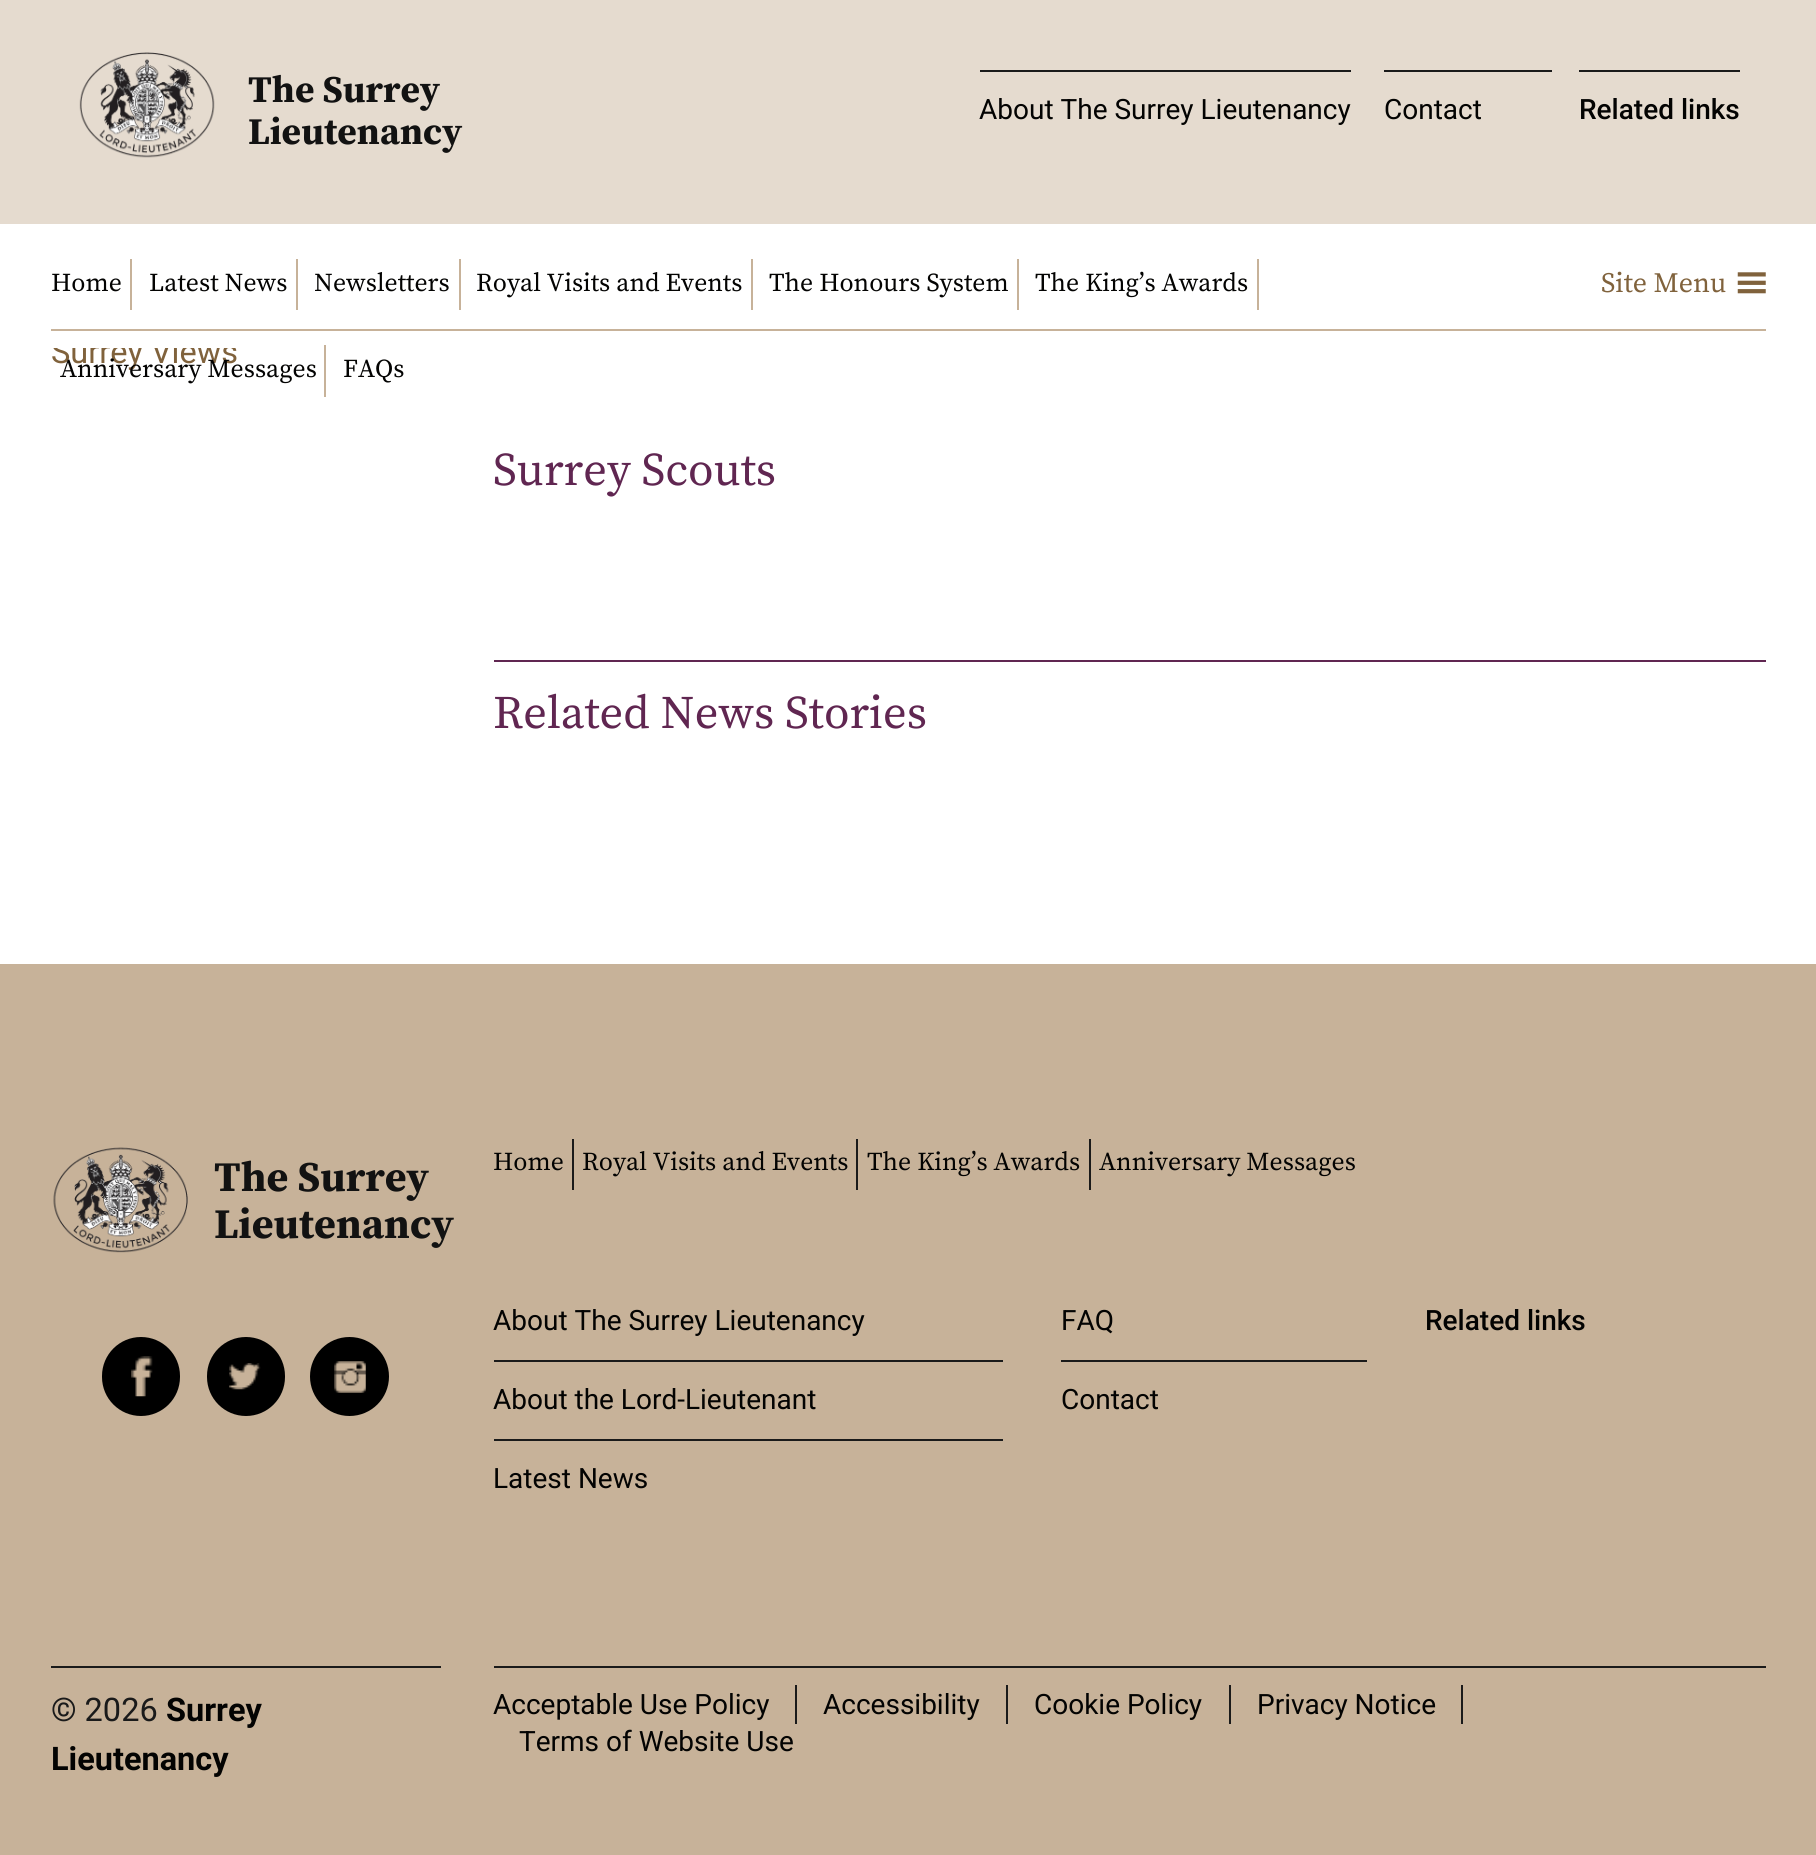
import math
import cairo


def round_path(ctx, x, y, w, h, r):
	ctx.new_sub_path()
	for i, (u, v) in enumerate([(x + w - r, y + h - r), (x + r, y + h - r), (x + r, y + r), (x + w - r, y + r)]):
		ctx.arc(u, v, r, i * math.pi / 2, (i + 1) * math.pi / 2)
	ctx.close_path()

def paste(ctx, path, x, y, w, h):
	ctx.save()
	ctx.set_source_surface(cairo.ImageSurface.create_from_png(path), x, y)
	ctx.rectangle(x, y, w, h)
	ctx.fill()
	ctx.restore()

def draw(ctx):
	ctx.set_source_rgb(1, 1, 1)
	ctx.paint()
	ctx.set_source_rgb(0.898, 0.859, 0.812)
	ctx.rectangle(0, 0, 1816, 224)
	ctx.fill()
	paste(ctx, 'media/1.png', 79, 52, 136, 106)
	ctx.select_font_face('Source Serif Pro', cairo.FONT_SLANT_NORMAL, cairo.FONT_WEIGHT_BOLD)
	ctx.set_font_size(37.5)
	ctx.set_source_rgb(0.071, 0.071, 0.071)
	ctx.move_to(248, 102)
	ctx.show_text('The Surrey')
	ctx.move_to(248, 144)
	ctx.show_text('Lieutenancy')
	ctx.set_source_rgb(0.102, 0.102, 0.102)
	ctx.rectangle(980, 70, 371, 2)
	ctx.fill()
	ctx.select_font_face('Roboto')
	ctx.set_font_size(28)
	ctx.set_source_rgb(0.012, 0.012, 0.008)
	ctx.move_to(979, 119)
	ctx.show_text('About The Surrey Lieutenancy')
	ctx.set_source_rgb(0.102, 0.102, 0.102)
	ctx.rectangle(1384, 70, 168, 2)
	ctx.fill()
	ctx.set_source_rgb(0.012, 0.012, 0.008)
	ctx.move_to(1384, 119)
	ctx.show_text('Contact')
	ctx.set_source_rgb(0.102, 0.102, 0.102)
	ctx.rectangle(1579, 70, 161, 2)
	ctx.fill()
	ctx.select_font_face('Roboto Medium')
	ctx.set_source_rgb(0.012, 0.012, 0.008)
	ctx.move_to(1579, 119)
	ctx.show_text('Related links')
	ctx.select_font_face('Roboto')
	ctx.set_font_size(32.5)
	ctx.set_source_rgb(0.502, 0.384, 0.235)
	ctx.move_to(51, 363)
	ctx.show_text('Surrey Views')
	ctx.set_source_rgb(1, 1, 1)
	ctx.rectangle(52, 339, 184, 9)
	ctx.fill()
	ctx.set_source_rgb(0.78, 0.698, 0.6)
	ctx.rectangle(130, 259, 2, 51)
	ctx.fill()
	ctx.select_font_face('Source Serif Pro')
	ctx.set_font_size(25.75)
	ctx.set_source_rgb(0.012, 0.012, 0.008)
	ctx.move_to(51, 291)
	ctx.show_text('Home')
	ctx.set_source_rgb(0.78, 0.698, 0.6)
	ctx.rectangle(296, 259, 2, 51)
	ctx.fill()
	ctx.set_source_rgb(0.012, 0.012, 0.008)
	ctx.move_to(149, 291)
	ctx.show_text('Latest News')
	ctx.set_source_rgb(0.78, 0.698, 0.6)
	ctx.rectangle(459, 259, 2, 51)
	ctx.fill()
	ctx.set_source_rgb(0.012, 0.012, 0.008)
	ctx.move_to(314, 291)
	ctx.show_text('Newsletters')
	ctx.set_source_rgb(0.78, 0.698, 0.6)
	ctx.rectangle(751, 259, 2, 51)
	ctx.fill()
	ctx.set_source_rgb(0.012, 0.012, 0.008)
	ctx.move_to(476, 291)
	ctx.show_text('Royal Visits and Events')
	ctx.set_source_rgb(0.78, 0.698, 0.6)
	ctx.rectangle(1017, 259, 2, 51)
	ctx.fill()
	ctx.set_source_rgb(0.012, 0.012, 0.008)
	ctx.move_to(769, 291)
	ctx.show_text('The Honours System')
	ctx.set_source_rgb(0.78, 0.698, 0.6)
	ctx.rectangle(1257, 259, 2, 51)
	ctx.fill()
	ctx.set_source_rgb(0.012, 0.012, 0.008)
	ctx.move_to(1035, 291)
	ctx.show_text('The King’s Awards')
	ctx.set_source_rgb(0.78, 0.698, 0.6)
	ctx.rectangle(324, 345, 2, 52)
	ctx.fill()
	ctx.set_source_rgb(0.012, 0.012, 0.008)
	ctx.move_to(60, 377)
	ctx.show_text('Anniversary Messages')
	ctx.move_to(343, 377)
	ctx.show_text('FAQs')
	ctx.set_font_size(28)
	ctx.set_source_rgb(0.502, 0.384, 0.235)
	ctx.move_to(1601, 292)
	ctx.show_text('Site Menu')
	paste(ctx, 'media/2.png', 1737, 272, 29, 22)
	ctx.set_source_rgb(0.78, 0.698, 0.6)
	ctx.rectangle(51, 329, 1715, 2)
	ctx.fill()
	ctx.set_font_size(46.5)
	ctx.set_source_rgb(0.376, 0.149, 0.318)
	ctx.move_to(493, 485)
	ctx.show_text('Surrey Scouts')
	ctx.rectangle(494, 660, 1272, 2)
	ctx.fill()
	ctx.move_to(493, 728)
	ctx.show_text('Related News Stories')
	ctx.set_source_rgb(0.78, 0.698, 0.6)
	ctx.rectangle(0, 964, 1816, 891)
	ctx.fill()
	paste(ctx, 'media/3.png', 53, 1147, 135, 106)
	ctx.select_font_face('Source Serif Pro', cairo.FONT_SLANT_NORMAL, cairo.FONT_WEIGHT_BOLD)
	ctx.set_font_size(42)
	ctx.set_source_rgb(0.071, 0.071, 0.071)
	ctx.move_to(214, 1191)
	ctx.show_text('The Surrey')
	ctx.move_to(214, 1238)
	ctx.show_text('Lieutenancy')
	ctx.set_source_rgb(0, 0, 0)
	round_path(ctx, 102, 1337, 78, 79, 39)
	ctx.fill()
	paste(ctx, 'media/4.png', 131, 1356, 22, 41)
	round_path(ctx, 207, 1337, 78, 79, 39)
	ctx.fill()
	paste(ctx, 'media/5.png', 229, 1363, 32, 27)
	ctx.arc(349.5, 1376.5, 39.5, 0, 2 * math.pi)
	ctx.fill()
	paste(ctx, 'media/6.png', 334, 1361, 32, 32)
	ctx.set_source_rgb(0.102, 0.102, 0.102)
	ctx.rectangle(572, 1139, 2, 51)
	ctx.fill()
	ctx.select_font_face('Source Serif Pro')
	ctx.set_font_size(25.75)
	ctx.set_source_rgb(0.012, 0.012, 0.008)
	ctx.move_to(493, 1170)
	ctx.show_text('Home')
	ctx.set_source_rgb(0.102, 0.102, 0.102)
	ctx.rectangle(856, 1139, 2, 51)
	ctx.fill()
	ctx.set_source_rgb(0.012, 0.012, 0.008)
	ctx.move_to(582, 1170)
	ctx.show_text('Royal Visits and Events')
	ctx.set_source_rgb(0.102, 0.102, 0.102)
	ctx.rectangle(1089, 1139, 2, 51)
	ctx.fill()
	ctx.set_source_rgb(0.012, 0.012, 0.008)
	ctx.move_to(867, 1170)
	ctx.show_text('The King’s Awards')
	ctx.move_to(1099, 1170)
	ctx.show_text('Anniversary Messages')
	ctx.select_font_face('Roboto')
	ctx.set_font_size(28)
	ctx.move_to(493, 1330)
	ctx.show_text('About The Surrey Lieutenancy')
	ctx.set_source_rgb(0.102, 0.102, 0.102)
	ctx.rectangle(494, 1360, 509, 2)
	ctx.fill()
	ctx.set_source_rgb(0.012, 0.012, 0.008)
	ctx.move_to(493, 1409)
	ctx.show_text('About the Lord-Lieutenant')
	ctx.set_source_rgb(0.102, 0.102, 0.102)
	ctx.rectangle(494, 1439, 509, 2)
	ctx.fill()
	ctx.set_source_rgb(0.012, 0.012, 0.008)
	ctx.move_to(493, 1488)
	ctx.show_text('Latest News')
	ctx.move_to(1061, 1330)
	ctx.show_text('FAQ')
	ctx.set_source_rgb(0.102, 0.102, 0.102)
	ctx.rectangle(1061, 1360, 306, 2)
	ctx.fill()
	ctx.set_source_rgb(0.012, 0.012, 0.008)
	ctx.move_to(1061, 1409)
	ctx.show_text('Contact')
	ctx.select_font_face('Roboto Medium')
	ctx.move_to(1425, 1330)
	ctx.show_text('Related links')
	ctx.set_source_rgb(0.102, 0.102, 0.102)
	ctx.rectangle(51, 1666, 390, 2)
	ctx.fill()
	ctx.select_font_face('Roboto')
	ctx.set_font_size(32.5)
	ctx.move_to(51, 1721)
	ctx.show_text('© 2026')
	ctx.select_font_face('Roboto', cairo.FONT_SLANT_NORMAL, cairo.FONT_WEIGHT_BOLD)
	ctx.set_source_rgb(0.012, 0.012, 0.008)
	ctx.move_to(166, 1721)
	ctx.show_text('Surrey')
	ctx.move_to(51, 1770)
	ctx.show_text('Lieutenancy')
	ctx.set_source_rgb(0.102, 0.102, 0.102)
	ctx.rectangle(494, 1666, 1272, 2)
	ctx.fill()
	ctx.rectangle(795, 1685, 2, 39)
	ctx.fill()
	ctx.select_font_face('Roboto')
	ctx.set_font_size(28)
	ctx.set_source_rgb(0.012, 0.012, 0.008)
	ctx.move_to(493, 1714)
	ctx.show_text('Acceptable Use Policy')
	ctx.set_source_rgb(0.102, 0.102, 0.102)
	ctx.rectangle(1006, 1685, 2, 39)
	ctx.fill()
	ctx.set_source_rgb(0.012, 0.012, 0.008)
	ctx.move_to(823, 1714)
	ctx.show_text('Accessibility')
	ctx.set_source_rgb(0.102, 0.102, 0.102)
	ctx.rectangle(1229, 1685, 2, 39)
	ctx.fill()
	ctx.set_source_rgb(0.012, 0.012, 0.008)
	ctx.move_to(1034, 1714)
	ctx.show_text('Cookie Policy')
	ctx.set_source_rgb(0.102, 0.102, 0.102)
	ctx.rectangle(1461, 1685, 2, 39)
	ctx.fill()
	ctx.set_source_rgb(0.012, 0.012, 0.008)
	ctx.move_to(1257, 1714)
	ctx.show_text('Privacy Notice')
	ctx.move_to(519, 1751)
	ctx.show_text('Terms of Website Use')


surface = cairo.ImageSurface(cairo.FORMAT_RGB24, 1816, 1855)
ctx = cairo.Context(surface)
options = cairo.FontOptions()
options.set_hint_metrics(cairo.HINT_METRICS_OFF)
options.set_hint_style(cairo.HINT_STYLE_NONE)
ctx.set_font_options(options)
ctx.set_miter_limit(4)
draw(ctx)
surface.write_to_png('image.png')
